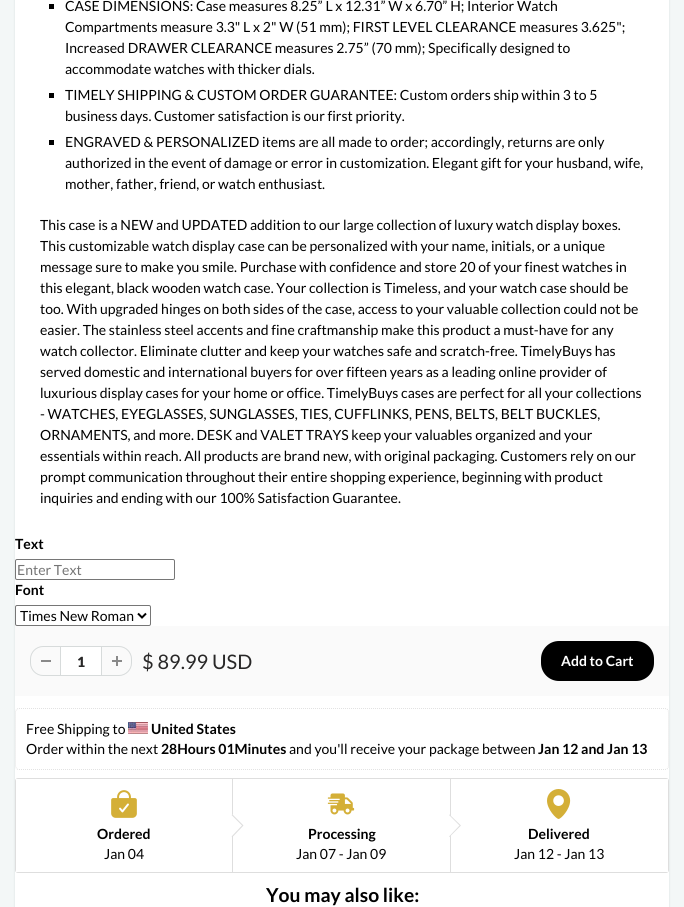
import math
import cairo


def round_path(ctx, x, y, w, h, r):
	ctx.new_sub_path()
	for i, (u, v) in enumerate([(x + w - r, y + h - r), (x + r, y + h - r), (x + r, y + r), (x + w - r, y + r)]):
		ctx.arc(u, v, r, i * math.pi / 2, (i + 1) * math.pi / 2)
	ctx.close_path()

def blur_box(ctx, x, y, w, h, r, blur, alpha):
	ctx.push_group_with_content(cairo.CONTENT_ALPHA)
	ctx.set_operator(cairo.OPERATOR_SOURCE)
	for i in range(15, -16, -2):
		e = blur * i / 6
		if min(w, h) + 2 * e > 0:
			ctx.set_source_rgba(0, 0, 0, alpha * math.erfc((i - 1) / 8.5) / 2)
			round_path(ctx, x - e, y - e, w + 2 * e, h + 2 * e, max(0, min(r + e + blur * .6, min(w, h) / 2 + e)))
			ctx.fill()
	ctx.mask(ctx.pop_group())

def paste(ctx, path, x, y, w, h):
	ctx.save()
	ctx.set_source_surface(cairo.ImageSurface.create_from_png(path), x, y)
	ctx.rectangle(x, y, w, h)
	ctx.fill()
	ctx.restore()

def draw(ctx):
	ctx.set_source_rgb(0.953, 0.965, 0.965)
	ctx.paint()
	ctx.set_source_rgb(0.043, 0.098, 0.11)
	blur_box(ctx, 15, -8, 654, 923, 5, 1, 0.1)
	ctx.set_source_rgb(1, 1, 1)
	ctx.rectangle(15, 0, 654, 907)
	ctx.fill()
	ctx.set_source_rgb(0, 0, 0)
	ctx.rectangle(49, 4, 5, 5)
	ctx.fill()
	ctx.select_font_face('Lato')
	ctx.set_font_size(14)
	for x, y, s in [
		(65, 11, 'CASE DIMENSIONS: Case measures 8.25” L x 12.31” W x 6.70” H; Interior Watch'),
		(65, 32, 'Compartments measure 3.3" L x 2" W (51 mm); FIRST LEVEL CLEARANCE measures 3.625";'),
		(65, 53, 'Increased DRAWER CLEARANCE measures 2.75” (70 mm); Specifically designed to'),
		(65, 74, 'accommodate watches with thicker dials.'),
	]:
		ctx.move_to(x, y)
		ctx.show_text(s)
	ctx.rectangle(49, 93, 5, 5)
	ctx.fill()
	ctx.move_to(65, 100)
	ctx.show_text('TIMELY SHIPPING & CUSTOM ORDER GUARANTEE: Custom orders ship within 3 to 5')
	ctx.move_to(65, 121)
	ctx.show_text('business days. Customer satisfaction is our first priority.')
	ctx.rectangle(49, 140, 5, 5)
	ctx.fill()
	for x, y, s in [
		(65, 147, 'ENGRAVED & PERSONALIZED items are all made to order; accordingly, returns are only'),
		(65, 168, 'authorized in the event of damage or error in customization. Elegant gift for your husband, wife,'),
		(65, 189, 'mother, father, friend, or watch enthusiast.'),
		(40, 230, 'This case is a NEW and UPDATED addition to our large collection of luxury watch display boxes.'),
		(40, 251, 'This customizable watch display case can be personalized with your name, initials, or a unique'),
		(40, 272, 'message sure to make you smile. Purchase with confidence and store 20 of your finest watches in'),
		(40, 293, 'this elegant, black wooden watch case. Your collection is Timeless, and your watch case should be'),
		(40, 314, 'too. With upgraded hinges on both sides of the case, access to your valuable collection could not be'),
		(40, 335, 'easier. The stainless steel accents and fine craftmanship make this product a must-have for any'),
		(40, 356, 'watch collector. Eliminate clutter and keep your watches safe and scratch-free. TimelyBuys has'),
		(40, 377, 'served domestic and international buyers for over fifteen years as a leading online provider of'),
		(40, 398, 'luxurious display cases for your home or office. TimelyBuys cases are perfect for all your collections'),
		(40, 419, '- WATCHES, EYEGLASSES, SUNGLASSES, TIES, CUFFLINKS, PENS, BELTS, BELT BUCKLES,'),
		(40, 440, 'ORNAMENTS, and more. DESK and VALET TRAYS keep your valuables organized and your'),
		(40, 461, 'essentials within reach. All products are brand new, with original packaging. Customers rely on our'),
		(40, 482, 'prompt communication throughout their entire shopping experience, beginning with product'),
		(40, 503, 'inquiries and ending with our 100% Satisfaction Guarantee.'),
	]:
		ctx.move_to(x, y)
		ctx.show_text(s)
	ctx.select_font_face('Lato', cairo.FONT_SLANT_NORMAL, cairo.FONT_WEIGHT_BOLD)
	ctx.move_to(15, 549)
	ctx.show_text('Text')
	round_path(ctx, 15.5, 559.5, 159, 20, 1.5)
	ctx.set_source_rgb(0.463, 0.463, 0.463)
	ctx.set_line_width(1)
	ctx.stroke()
	ctx.select_font_face('Lato')
	ctx.set_source_rgb(0.459, 0.459, 0.459)
	ctx.move_to(17, 575)
	ctx.show_text('Enter Text')
	ctx.select_font_face('Lato', cairo.FONT_SLANT_NORMAL, cairo.FONT_WEIGHT_BOLD)
	ctx.set_source_rgb(0, 0, 0)
	ctx.move_to(15, 595)
	ctx.show_text('Font')
	round_path(ctx, 15.5, 605.5, 135, 20, 1.5)
	ctx.set_source_rgb(0.463, 0.463, 0.463)
	ctx.stroke()
	ctx.new_path()
	ctx.move_to(138, 613.5)
	ctx.line_to(142, 617.5)
	ctx.line_to(146, 613.5)
	ctx.set_source_rgb(0, 0, 0)
	ctx.set_line_width(2)
	ctx.stroke()
	ctx.select_font_face('Lato')
	ctx.move_to(20, 621)
	ctx.show_text('Times New Roman')
	ctx.set_source_rgb(0.98, 0.98, 0.98)
	ctx.rectangle(15, 626, 654, 70)
	ctx.fill()
	ctx.set_source_rgb(0.537, 0.537, 0.537)
	ctx.rectangle(41, 660, 10, 2)
	ctx.fill()
	ctx.set_source_rgb(0.843, 0.859, 0.859)
	ctx.set_fill_rule(cairo.FILL_RULE_EVEN_ODD)
	ctx.new_path()
	ctx.move_to(43, 646)
	ctx.line_to(60, 646)
	ctx.line_to(60, 676)
	ctx.line_to(43, 676)
	ctx.curve_to(36, 676, 30, 670, 30, 663)
	ctx.line_to(30, 659)
	ctx.curve_to(30, 652, 36, 646, 43, 646)
	ctx.close_path()
	ctx.move_to(43, 647)
	ctx.line_to(60, 647)
	ctx.line_to(60, 675)
	ctx.line_to(43, 675)
	ctx.curve_to(36.5, 675, 31, 669.5, 31, 663)
	ctx.line_to(31, 659)
	ctx.curve_to(31, 652.5, 36.5, 647, 43, 647)
	ctx.close_path()
	ctx.fill()
	ctx.set_source_rgb(1, 1, 1)
	ctx.rectangle(60.5, 646.5, 41, 29)
	ctx.fill_preserve()
	ctx.set_source_rgb(0.843, 0.859, 0.859)
	ctx.set_line_width(1)
	ctx.stroke()
	ctx.select_font_face('Lato Black')
	ctx.set_source_rgb(0.157, 0.153, 0.153)
	ctx.move_to(77, 667)
	ctx.show_text('1')
	paste(ctx, 'media/1.png', 112, 656, 10, 10)
	ctx.set_source_rgb(0.843, 0.859, 0.859)
	ctx.new_path()
	ctx.move_to(102, 646)
	ctx.line_to(119, 646)
	ctx.curve_to(126, 646, 132, 652, 132, 659)
	ctx.line_to(132, 663)
	ctx.curve_to(132, 670, 126, 676, 119, 676)
	ctx.line_to(102, 676)
	ctx.close_path()
	ctx.move_to(102, 647)
	ctx.line_to(119, 647)
	ctx.curve_to(125.5, 647, 131, 652.5, 131, 659)
	ctx.line_to(131, 663)
	ctx.curve_to(131, 669.5, 125.5, 675, 119, 675)
	ctx.line_to(102, 675)
	ctx.close_path()
	ctx.fill()
	ctx.select_font_face('Lato')
	ctx.set_font_size(20)
	ctx.set_source_rgb(0.157, 0.153, 0.153)
	ctx.move_to(142, 669)
	ctx.show_text('$ 89.99 USD')
	ctx.set_source_rgb(0, 0, 0)
	round_path(ctx, 541, 641, 113, 40, 18)
	ctx.fill()
	ctx.select_font_face('Lato', cairo.FONT_SLANT_NORMAL, cairo.FONT_WEIGHT_BOLD)
	ctx.set_font_size(14)
	ctx.set_source_rgb(1, 1, 1)
	ctx.move_to(561, 666)
	ctx.show_text('Add to Cart')
	ctx.new_path()
	ctx.move_to(19, 708.5)
	ctx.line_to(665, 708.5)
	ctx.curve_to(667, 708.5, 668.5, 710, 668.5, 712)
	ctx.line_to(668.5, 766)
	ctx.curve_to(668.5, 768, 667, 769.5, 665, 769.5)
	ctx.line_to(19, 769.5)
	ctx.curve_to(17, 769.5, 15.5, 768, 15.5, 766)
	ctx.line_to(15.5, 712)
	ctx.curve_to(15.5, 710, 17, 708.5, 19, 708.5)
	ctx.close_path()
	ctx.set_source_rgb(0.886, 0.886, 0.886)
	ctx.set_dash([1, 1])
	ctx.stroke()
	ctx.select_font_face('Lato')
	ctx.set_source_rgb(0, 0, 0)
	ctx.move_to(26, 734)
	ctx.show_text('Free Shipping to')
	paste(ctx, 'media/2.png', 128, 722, 20, 12)
	ctx.select_font_face('Lato', cairo.FONT_SLANT_NORMAL, cairo.FONT_WEIGHT_BOLD)
	ctx.move_to(151, 734)
	ctx.show_text('United States')
	ctx.select_font_face('Lato')
	ctx.move_to(26, 754)
	ctx.show_text('Order within the next')
	ctx.select_font_face('Lato', cairo.FONT_SLANT_NORMAL, cairo.FONT_WEIGHT_BOLD)
	ctx.move_to(161, 754)
	ctx.show_text('28Hours 01Minutes')
	ctx.select_font_face('Lato')
	ctx.move_to(289, 754)
	ctx.show_text('and you\'ll receive your package between')
	ctx.select_font_face('Lato', cairo.FONT_SLANT_NORMAL, cairo.FONT_WEIGHT_BOLD)
	ctx.move_to(538, 754)
	ctx.show_text('Jan 12 and Jan 13')
	round_path(ctx, 15.5, 778.5, 653, 94, 2.5)
	ctx.set_source_rgb(0.871, 0.871, 0.871)
	ctx.set_dash([])
	ctx.stroke()
	ctx.set_source_rgb(1, 1, 1)
	ctx.rectangle(16, 779, 2, 93)
	ctx.fill()
	ctx.set_source_rgb(0.871, 0.871, 0.871)
	ctx.rectangle(232, 779, 1, 93)
	ctx.fill()
	paste(ctx, 'media/3.png', 111, 790, 26, 28)
	ctx.set_source_rgb(1, 1, 1)
	ctx.set_fill_rule(cairo.FILL_RULE_WINDING)
	ctx.new_path()
	ctx.move_to(221, 825.5)
	ctx.line_to(232.5, 814.5)
	ctx.line_to(243.5, 825.5)
	ctx.line_to(232.5, 837)
	ctx.close_path()
	ctx.fill()
	ctx.set_source_rgb(0.871, 0.871, 0.871)
	ctx.new_path()
	ctx.move_to(232.5, 814.5)
	ctx.line_to(243.5, 825.5)
	ctx.line_to(242, 825.5)
	ctx.line_to(231.5, 815)
	ctx.close_path()
	ctx.fill()
	ctx.set_source_rgba(0.133, 0.141, 0.149, 0.15)
	ctx.new_path()
	ctx.move_to(243.5, 825.5)
	ctx.line_to(232.5, 837)
	ctx.line_to(231.5, 836.5)
	ctx.line_to(242, 825.5)
	ctx.close_path()
	ctx.fill()
	ctx.set_source_rgb(0, 0, 0)
	ctx.move_to(97, 839)
	ctx.show_text('Ordered')
	ctx.select_font_face('Lato')
	ctx.move_to(104, 859)
	ctx.show_text('Jan 04')
	ctx.set_source_rgb(0.871, 0.871, 0.871)
	ctx.rectangle(450, 779, 1, 93)
	ctx.fill()
	paste(ctx, 'media/4.png', 327, 793, 28, 22)
	ctx.set_source_rgb(1, 1, 1)
	ctx.new_path()
	ctx.move_to(438.5, 825.5)
	ctx.line_to(449.5, 814.5)
	ctx.line_to(461, 825.5)
	ctx.line_to(449.5, 837)
	ctx.close_path()
	ctx.fill()
	ctx.set_source_rgba(0.133, 0.141, 0.149, 0.15)
	ctx.new_path()
	ctx.move_to(449.5, 814.5)
	ctx.line_to(461, 825.5)
	ctx.line_to(459.5, 825.5)
	ctx.line_to(449, 815)
	ctx.close_path()
	ctx.fill()
	ctx.new_path()
	ctx.move_to(461, 825.5)
	ctx.line_to(449.5, 837)
	ctx.line_to(449, 836.5)
	ctx.line_to(459.5, 825.5)
	ctx.close_path()
	ctx.fill()
	ctx.select_font_face('Lato', cairo.FONT_SLANT_NORMAL, cairo.FONT_WEIGHT_BOLD)
	ctx.set_source_rgb(0, 0, 0)
	ctx.move_to(308, 839)
	ctx.show_text('Processing')
	ctx.select_font_face('Lato')
	ctx.move_to(296, 859)
	ctx.show_text('Jan 07 - Jan 09')
	ctx.set_source_rgb(1, 1, 1)
	ctx.rectangle(666, 779, 2, 93)
	ctx.fill()
	paste(ctx, 'media/5.png', 547, 789, 24, 30)
	ctx.select_font_face('Lato', cairo.FONT_SLANT_NORMAL, cairo.FONT_WEIGHT_BOLD)
	ctx.set_source_rgb(0, 0, 0)
	ctx.move_to(528, 839)
	ctx.show_text('Delivered')
	ctx.select_font_face('Lato')
	ctx.move_to(514, 859)
	ctx.show_text('Jan 12 - Jan 13')
	ctx.select_font_face('Lato', cairo.FONT_SLANT_NORMAL, cairo.FONT_WEIGHT_BOLD)
	ctx.set_font_size(19.25)
	ctx.move_to(266, 902)
	ctx.show_text('You may also like:')


surface = cairo.ImageSurface(cairo.FORMAT_RGB24, 684, 907)
ctx = cairo.Context(surface)
options = cairo.FontOptions()
options.set_hint_metrics(cairo.HINT_METRICS_OFF)
options.set_hint_style(cairo.HINT_STYLE_NONE)
ctx.set_font_options(options)
ctx.set_miter_limit(4)
draw(ctx)
surface.write_to_png('image.png')
